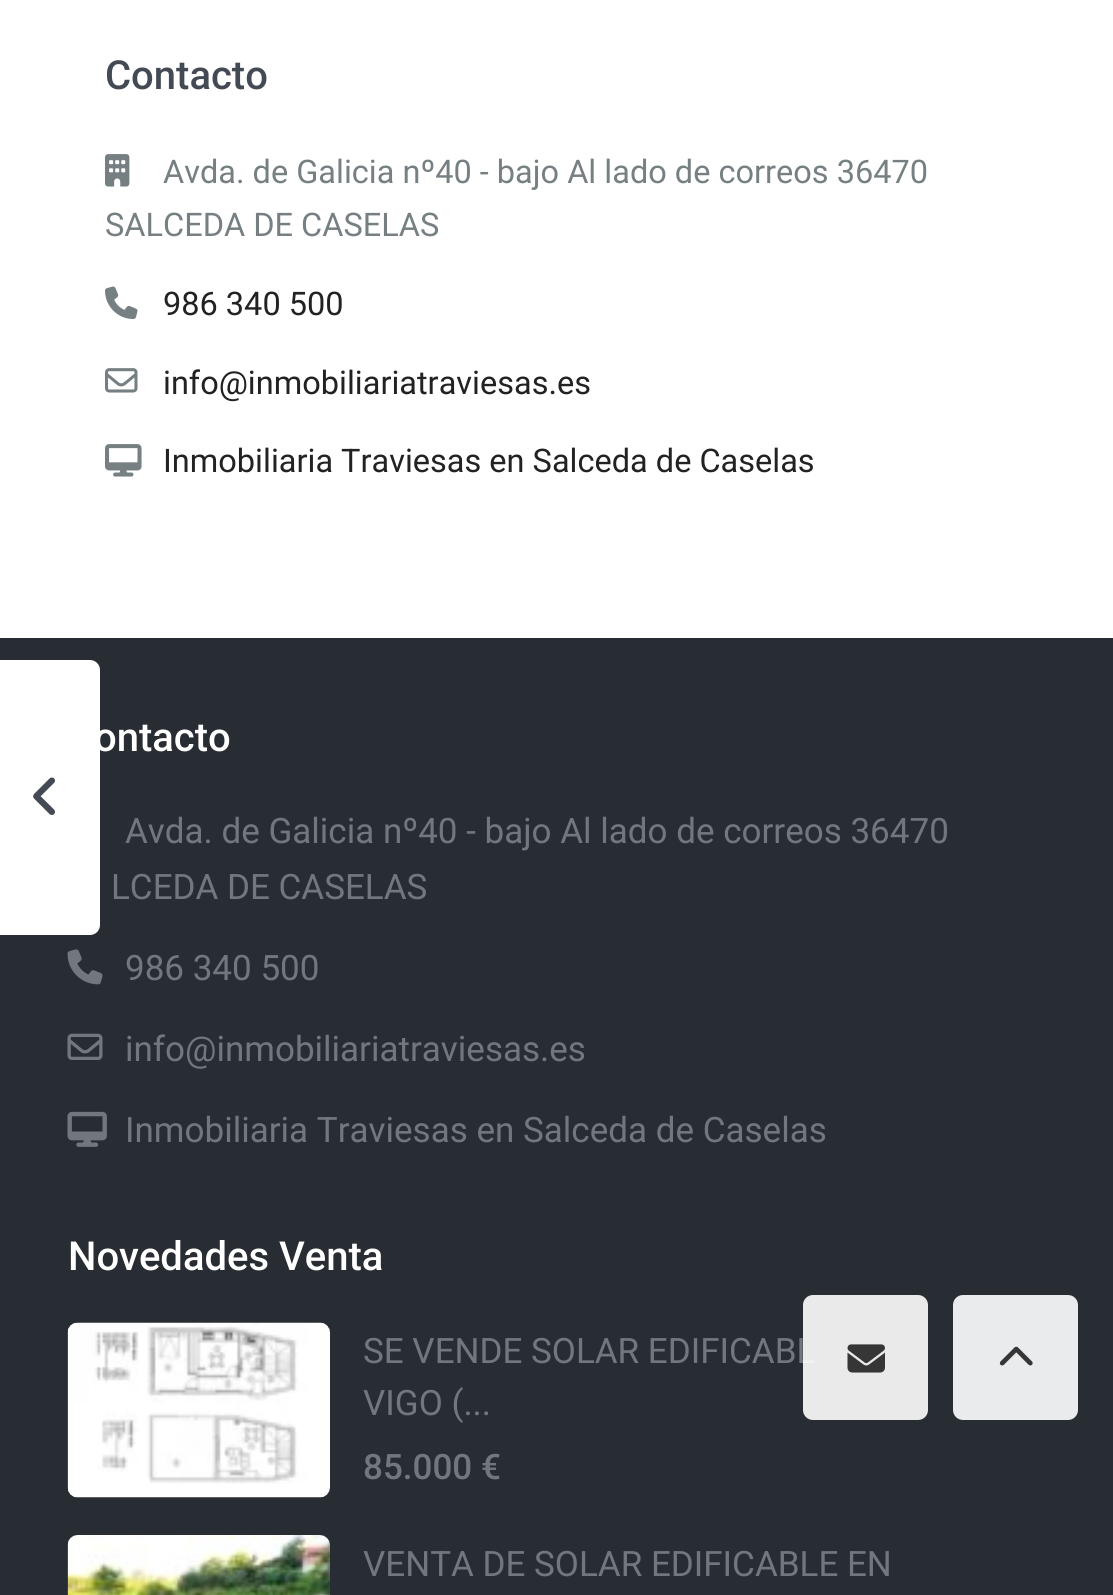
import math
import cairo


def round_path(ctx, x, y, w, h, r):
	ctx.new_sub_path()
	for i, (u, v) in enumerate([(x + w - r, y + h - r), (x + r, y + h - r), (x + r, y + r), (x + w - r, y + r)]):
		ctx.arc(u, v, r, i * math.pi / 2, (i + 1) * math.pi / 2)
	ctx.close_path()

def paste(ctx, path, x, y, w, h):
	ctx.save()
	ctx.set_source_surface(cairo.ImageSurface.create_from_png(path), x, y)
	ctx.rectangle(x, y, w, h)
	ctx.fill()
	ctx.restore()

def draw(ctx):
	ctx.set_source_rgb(0.157, 0.176, 0.2)
	ctx.paint()
	ctx.set_source_rgb(1, 1, 1)
	ctx.new_path()
	ctx.move_to(-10, 660)
	ctx.line_to(90, 660)
	ctx.curve_to(95.5, 660, 100, 664.5, 100, 670)
	ctx.line_to(100, 925)
	ctx.curve_to(100, 930.5, 95.5, 935, 90, 935)
	ctx.line_to(-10, 935)
	ctx.close_path()
	ctx.fill()
	paste(ctx, 'media/1.png', 33, 777, 22, 38)
	ctx.rectangle(0, 0, 1113, 638)
	ctx.fill()
	ctx.select_font_face('Roboto Medium')
	ctx.set_font_size(40)
	ctx.set_source_rgb(0.263, 0.29, 0.329)
	ctx.move_to(105, 89)
	ctx.show_text('Contacto')
	paste(ctx, 'media/2.png', 105, 154, 25, 33)
	ctx.select_font_face('Roboto')
	ctx.set_font_size(32.5)
	ctx.set_source_rgb(0.463, 0.502, 0.51)
	ctx.move_to(163, 183)
	ctx.show_text('Avda. de Galicia nº40 - bajo Al lado de correos 36470')
	ctx.move_to(105, 236)
	ctx.show_text('SALCEDA DE CASELAS')
	paste(ctx, 'media/3.png', 105, 286, 33, 34)
	ctx.set_source_rgb(0.133, 0.133, 0.133)
	ctx.move_to(163, 315)
	ctx.show_text('986 340 500')
	paste(ctx, 'media/4.png', 105, 368, 33, 25)
	ctx.move_to(163, 394)
	ctx.show_text('info@inmobiliariatraviesas.es')
	paste(ctx, 'media/5.png', 105, 444, 37, 33)
	ctx.move_to(163, 472)
	ctx.show_text('Inmobiliaria Traviesas en Salceda de Caselas')
	ctx.select_font_face('Roboto Medium')
	ctx.set_font_size(40)
	ctx.set_source_rgb(1, 1, 1)
	ctx.move_to(94, 751)
	ctx.show_text('ontacto')
	ctx.select_font_face('Roboto')
	ctx.set_font_size(35)
	ctx.set_source_rgb(0.447, 0.467, 0.498)
	ctx.move_to(125, 843)
	ctx.show_text('Avda. de Galicia nº40 - bajo Al lado de correos 36470')
	ctx.move_to(111, 899)
	ctx.show_text('LCEDA DE CASELAS')
	paste(ctx, 'media/6.png', 67, 949, 36, 36)
	ctx.move_to(125, 980)
	ctx.show_text('986 340 500')
	paste(ctx, 'media/7.png', 67, 1033, 36, 27)
	ctx.move_to(125, 1061)
	ctx.show_text('info@inmobiliariatraviesas.es')
	paste(ctx, 'media/8.png', 67, 1111, 40, 36)
	ctx.move_to(125, 1142)
	ctx.show_text('Inmobiliaria Traviesas en Salceda de Caselas')
	ctx.select_font_face('Roboto Medium')
	ctx.set_font_size(40)
	ctx.set_source_rgb(1, 1, 1)
	ctx.move_to(68, 1270)
	ctx.show_text('Novedades Venta')
	paste(ctx, 'media/9.png', 67, 1322, 263, 176)
	ctx.select_font_face('Roboto')
	ctx.set_font_size(35)
	ctx.set_source_rgb(0.447, 0.467, 0.498)
	ctx.move_to(363, 1363)
	ctx.show_text('SE VENDE SOLAR EDIFICABL')
	ctx.move_to(363, 1415)
	ctx.show_text('VIGO (...')
	ctx.select_font_face('Roboto Medium')
	ctx.move_to(363, 1479)
	ctx.show_text('85.000 €')
	paste(ctx, 'media/10.png', 67, 1535, 263, 60)
	ctx.select_font_face('Roboto')
	ctx.move_to(363, 1576)
	ctx.show_text('VENTA DE SOLAR EDIFICABLE EN')
	ctx.set_source_rgba(1, 1, 1, 0.9)
	round_path(ctx, 803, 1295, 125, 125, 10)
	ctx.fill()
	paste(ctx, 'media/11.png', 847, 1344, 38, 29)
	ctx.set_source_rgb(0.914, 0.918, 0.922)
	round_path(ctx, 953, 1295, 125, 125, 10)
	ctx.fill()
	paste(ctx, 'media/12.png', 999, 1346, 34, 20)


surface = cairo.ImageSurface(cairo.FORMAT_RGB24, 1113, 1595)
ctx = cairo.Context(surface)
options = cairo.FontOptions()
options.set_hint_metrics(cairo.HINT_METRICS_OFF)
options.set_hint_style(cairo.HINT_STYLE_NONE)
ctx.set_font_options(options)
ctx.set_miter_limit(4)
draw(ctx)
surface.write_to_png('image.png')
